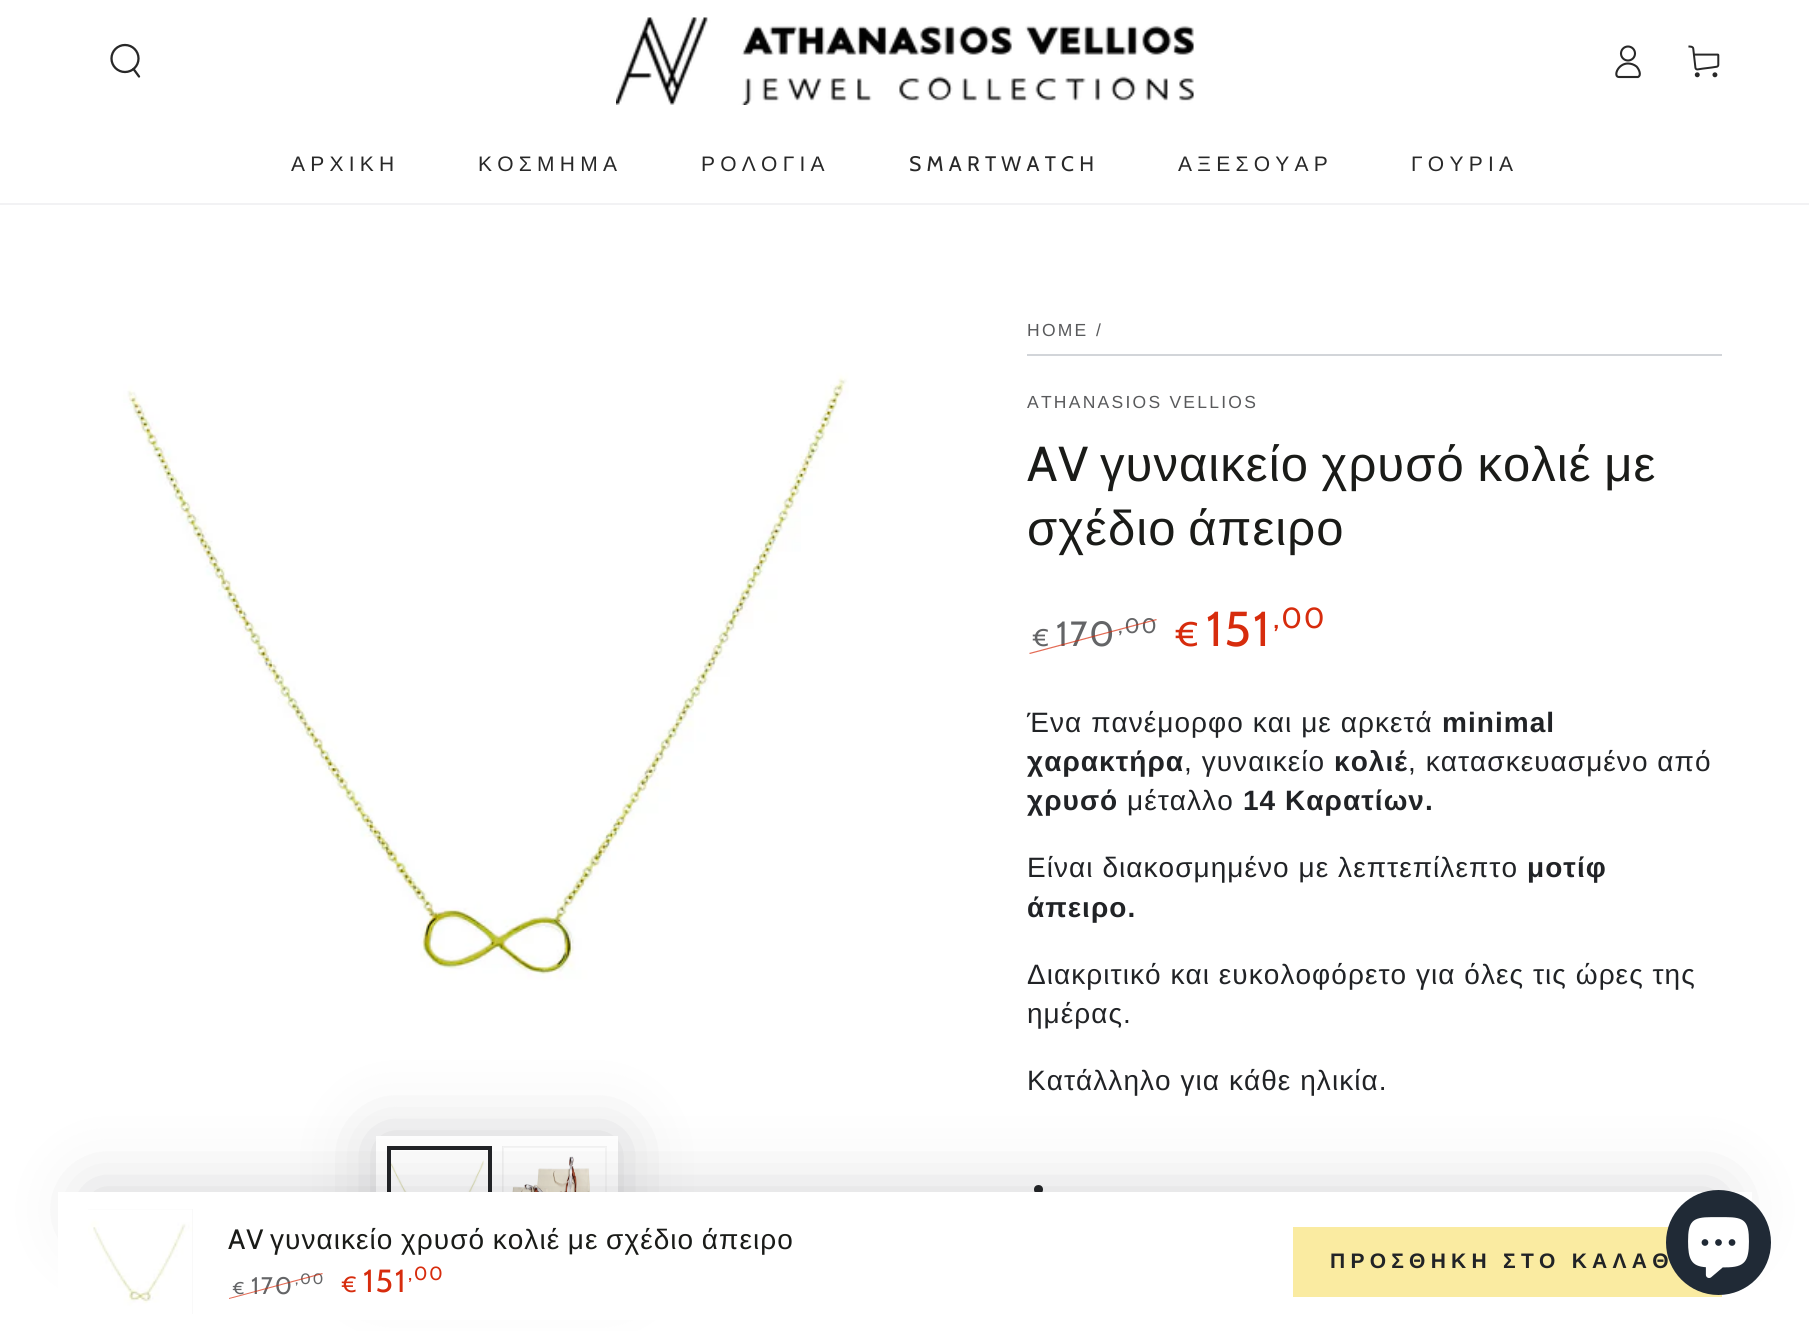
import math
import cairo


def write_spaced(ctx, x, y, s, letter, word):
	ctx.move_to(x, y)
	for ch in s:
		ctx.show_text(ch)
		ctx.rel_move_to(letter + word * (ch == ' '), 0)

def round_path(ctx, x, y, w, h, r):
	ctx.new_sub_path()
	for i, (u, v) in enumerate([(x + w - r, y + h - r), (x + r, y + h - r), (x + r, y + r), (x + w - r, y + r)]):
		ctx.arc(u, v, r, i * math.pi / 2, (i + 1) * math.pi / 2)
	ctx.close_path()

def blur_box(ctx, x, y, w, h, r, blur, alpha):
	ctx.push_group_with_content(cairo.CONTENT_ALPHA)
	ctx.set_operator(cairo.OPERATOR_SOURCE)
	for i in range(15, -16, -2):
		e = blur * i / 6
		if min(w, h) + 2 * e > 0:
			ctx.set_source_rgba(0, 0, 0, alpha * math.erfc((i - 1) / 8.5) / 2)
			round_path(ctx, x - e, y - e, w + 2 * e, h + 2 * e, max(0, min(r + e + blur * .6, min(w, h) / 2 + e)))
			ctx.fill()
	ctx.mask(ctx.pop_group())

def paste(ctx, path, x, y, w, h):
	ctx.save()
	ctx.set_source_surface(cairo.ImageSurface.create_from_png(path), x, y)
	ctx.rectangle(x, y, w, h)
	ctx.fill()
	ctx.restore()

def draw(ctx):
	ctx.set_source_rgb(1, 1, 1)
	ctx.paint()
	ctx.set_source_rgb(0.949, 0.949, 0.957)
	ctx.new_path()
	ctx.move_to(0, 203)
	ctx.line_to(0, 205)
	ctx.line_to(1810, 205)
	ctx.line_to(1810, 2)
	ctx.line_to(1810, 203)
	ctx.close_path()
	ctx.fill()
	ctx.arc(125, 58.5, 13.5, 0, 2 * math.pi)
	ctx.set_source_rgb(0.157, 0.157, 0.157)
	ctx.set_line_width(2.3)
	ctx.stroke()
	ctx.new_path()
	ctx.move_to(133.5, 69)
	ctx.line_to(139, 76.5)
	ctx.set_line_cap(cairo.LINE_CAP_ROUND)
	ctx.stroke()
	paste(ctx, 'media/1.png', 616, 17, 578, 88)
	ctx.new_path()
	ctx.move_to(1628, 63.5)
	ctx.curve_to(1617.5, 63.5, 1613, 77, 1619, 77)
	ctx.line_to(1638, 77)
	ctx.curve_to(1642, 75, 1638.5, 68.5, 1636.5, 66.5)
	ctx.curve_to(1634, 64.5, 1631, 63.5, 1628, 63.5)
	ctx.close_path()
	ctx.set_line_width(2.1)
	ctx.set_line_cap(cairo.LINE_CAP_BUTT)
	ctx.stroke()
	ctx.arc(1628, 53.5, 7, 0, 2 * math.pi)
	ctx.stroke()
	paste(ctx, 'media/2.png', 1688, 45, 32, 33)
	ctx.select_font_face('Liberation Sans')
	ctx.set_font_size(21)
	for x, y, s in [
		(291, 171, 'ΑΡΧΙΚΗ'),
		(478, 171, 'ΚΟΣΜΗΜΑ'),
		(701, 171, 'ΡΟΛΟΓΙΑ'),
	]:
		write_spaced(ctx, x, y, s, 5.25, 0)
	ctx.select_font_face('Cabin')
	write_spaced(ctx, 909, 171, 'SMARTWATCH', 5.25, 0)
	ctx.select_font_face('Liberation Sans')
	write_spaced(ctx, 1178, 171, 'ΑΞΕΣΟΥΑΡ', 5.25, 0)
	write_spaced(ctx, 1411, 171, 'ΓΟΥΡΙΑ', 5.25, 0)
	paste(ctx, 'media/3.png', 88, 266, 817, 817)
	ctx.set_source_rgb(0.129, 0.137, 0.149)
	blur_box(ctx, 376, 1136, 242, 128, 0, 35, 0.2)
	ctx.set_source_rgb(1, 1, 1)
	ctx.rectangle(376, 1136, 242, 56)
	ctx.fill()
	paste(ctx, 'media/4.png', 391, 1150, 97, 42)
	ctx.rectangle(389, 1148, 101, 103)
	ctx.set_source_rgb(0.129, 0.137, 0.149)
	ctx.set_line_width(4)
	ctx.stroke()
	ctx.set_source_rgb(0.953, 0.953, 0.953)
	ctx.rectangle(502, 1146, 105, 46)
	ctx.fill()
	paste(ctx, 'media/5.png', 502, 1146, 105, 46)
	ctx.rectangle(503, 1147, 103, 105)
	ctx.set_source_rgba(0.129, 0.137, 0.149, 0.04)
	ctx.set_line_width(2)
	ctx.stroke()
	ctx.set_source_rgb(0.824, 0.835, 0.851)
	ctx.rectangle(1027, 354, 695, 2)
	ctx.fill()
	ctx.set_font_size(17.5)
	ctx.set_source_rgb(0.349, 0.353, 0.361)
	for x, y, s in [
		(1027, 336, 'HOME'),
		(1096, 336, '/'),
		(1027, 408, 'ATHANASIOS VELLIOS'),
	]:
		write_spaced(ctx, x, y, s, 2.25, 0)
	ctx.select_font_face('Cabin')
	ctx.set_font_size(49)
	ctx.set_source_rgb(0.102, 0.106, 0.094)
	write_spaced(ctx, 1027, 481, 'AV', 1.05, 0)
	ctx.select_font_face('Liberation Sans')
	write_spaced(ctx, 1100, 481, 'γυναικείο χρυσό κολιέ με', 1.05, -2)
	write_spaced(ctx, 1027, 545, 'σχέδιο άπειρο', 1.05, -3)
	ctx.select_font_face('Cabin')
	ctx.set_font_size(21)
	ctx.set_source_rgb(0.392, 0.396, 0.404)
	write_spaced(ctx, 1118, 633, ',00', 2.25, 0)
	ctx.set_font_size(24)
	write_spaced(ctx, 1033, 646, '€', 2.25, 0)
	ctx.set_font_size(35)
	write_spaced(ctx, 1056, 646, '170', 2.25, 0)
	ctx.set_source_rgba(0.843, 0.173, 0.051, 0.7)
	ctx.new_path()
	ctx.move_to(1029, 653)
	ctx.line_to(1156, 619)
	ctx.line_to(1157, 620)
	ctx.line_to(1030, 654)
	ctx.close_path()
	ctx.fill()
	ctx.set_font_size(34)
	ctx.set_source_rgb(0.843, 0.173, 0.051)
	write_spaced(ctx, 1176, 646, '€', 2.25, 0)
	ctx.set_font_size(49)
	write_spaced(ctx, 1206, 646, '151', 2.25, 0)
	ctx.set_font_size(29)
	write_spaced(ctx, 1273, 628, ',00', 2.25, 0)
	ctx.select_font_face('Liberation Sans')
	ctx.set_font_size(28)
	ctx.set_source_rgb(0.129, 0.137, 0.149)
	write_spaced(ctx, 1027, 732, 'Ένα πανέμορφο και με αρκετά', 1.05, 0)
	ctx.select_font_face('Liberation Sans', cairo.FONT_SLANT_NORMAL, cairo.FONT_WEIGHT_BOLD)
	write_spaced(ctx, 1442, 732, 'minimal', 1.05, 0)
	write_spaced(ctx, 1027, 771, 'χαρακτήρα', 1.05, 0)
	ctx.select_font_face('Liberation Sans')
	write_spaced(ctx, 1184, 771, ', γυναικείο', 1.05, 0)
	ctx.select_font_face('Liberation Sans', cairo.FONT_SLANT_NORMAL, cairo.FONT_WEIGHT_BOLD)
	write_spaced(ctx, 1334, 771, 'κολιέ', 1.05, 0)
	ctx.select_font_face('Liberation Sans')
	write_spaced(ctx, 1408, 771, ', κατασκευασμένο από', 1.05, 0)
	ctx.select_font_face('Liberation Sans', cairo.FONT_SLANT_NORMAL, cairo.FONT_WEIGHT_BOLD)
	write_spaced(ctx, 1027, 810, 'χρυσό', 1.05, 0)
	ctx.select_font_face('Liberation Sans')
	write_spaced(ctx, 1127, 810, 'μέταλλο', 1.05, 0)
	ctx.select_font_face('Liberation Sans', cairo.FONT_SLANT_NORMAL, cairo.FONT_WEIGHT_BOLD)
	write_spaced(ctx, 1243, 810, '14 Καρατίων.', 1.05, 0)
	ctx.select_font_face('Liberation Sans')
	write_spaced(ctx, 1027, 877, 'Είναι διακοσμημένο με λεπτεπίλεπτο', 1.05, 0)
	ctx.select_font_face('Liberation Sans', cairo.FONT_SLANT_NORMAL, cairo.FONT_WEIGHT_BOLD)
	write_spaced(ctx, 1527, 877, 'μοτίφ', 1.05, 0)
	write_spaced(ctx, 1027, 917, 'άπειρο.', 1.05, 0)
	ctx.select_font_face('Liberation Sans')
	for x, y, s in [
		(1027, 984, 'Διακριτικό και ευκολοφόρετο για όλες τις ώρες της'),
		(1027, 1023, 'ημέρας.'),
		(1027, 1090, 'Κατάλληλο για κάθε ηλικία.'),
	]:
		write_spaced(ctx, x, y, s, 1.05, 0)
	ctx.new_path()
	ctx.arc(1038.5, 1189.5, 4.5, 0, 2 * math.pi)
	ctx.fill()
	ctx.set_source_rgb(0.129, 0.137, 0.149)
	blur_box(ctx, 91, 1192, 1628, 35, 17.5, 35, 0.2)
	ctx.set_source_rgb(1, 1, 1)
	ctx.rectangle(58, 1192, 1694, 128)
	ctx.fill()
	ctx.set_source_rgb(0.953, 0.953, 0.953)
	ctx.rectangle(88, 1209, 105, 105)
	ctx.fill()
	paste(ctx, 'media/6.png', 88, 1209, 105, 105)
	ctx.select_font_face('Cabin')
	ctx.set_source_rgb(0.102, 0.106, 0.094)
	write_spaced(ctx, 228, 1249, 'AV', 1.05, 0)
	ctx.select_font_face('Liberation Sans')
	write_spaced(ctx, 270, 1249, 'γυναικείο χρυσό κολιέ με σχέδιο άπειρο', 1.05, -1.25)
	ctx.select_font_face('Cabin')
	ctx.set_font_size(17)
	ctx.set_source_rgb(0.392, 0.396, 0.404)
	write_spaced(ctx, 233, 1294, '€', 2, 0)
	ctx.set_font_size(24)
	write_spaced(ctx, 251, 1294, '170', 2, 0)
	ctx.set_font_size(15)
	write_spaced(ctx, 295, 1284, ',00', 2, 0)
	ctx.set_source_rgba(0.843, 0.173, 0.051, 0.7)
	ctx.new_path()
	ctx.move_to(229, 1298)
	ctx.line_to(322, 1273)
	ctx.line_to(323, 1274)
	ctx.line_to(229, 1299)
	ctx.close_path()
	ctx.fill()
	ctx.set_font_size(22)
	ctx.set_source_rgb(0.843, 0.173, 0.051)
	write_spaced(ctx, 342, 1292, '€', 2, 0)
	ctx.set_font_size(32)
	write_spaced(ctx, 363, 1292, '151', 2, 0)
	ctx.set_font_size(19)
	write_spaced(ctx, 408, 1280, ',00', 2, 0)
	ctx.set_source_rgb(0.98, 0.918, 0.631)
	ctx.rectangle(1293, 1227, 429, 70)
	ctx.fill()
	ctx.select_font_face('Liberation Sans', cairo.FONT_SLANT_NORMAL, cairo.FONT_WEIGHT_BOLD)
	ctx.set_font_size(21)
	ctx.set_source_rgb(0.129, 0.137, 0.149)
	write_spaced(ctx, 1330, 1268, 'ΠΡΟΣΘΗΚΗ ΣΤΟ ΚΑΛΑΘ', 5.25, 0)
	ctx.set_source_rgb(0.125, 0.165, 0.212)
	ctx.new_path()
	ctx.arc(1718.5, 1242.5, 52.5, 0, 2 * math.pi)
	ctx.fill()
	paste(ctx, 'media/7.png', 1688, 1217, 61, 61)


surface = cairo.ImageSurface(cairo.FORMAT_RGB24, 1809, 1331)
ctx = cairo.Context(surface)
options = cairo.FontOptions()
options.set_hint_metrics(cairo.HINT_METRICS_OFF)
options.set_hint_style(cairo.HINT_STYLE_NONE)
ctx.set_font_options(options)
ctx.set_miter_limit(4)
draw(ctx)
surface.write_to_png('image.png')
